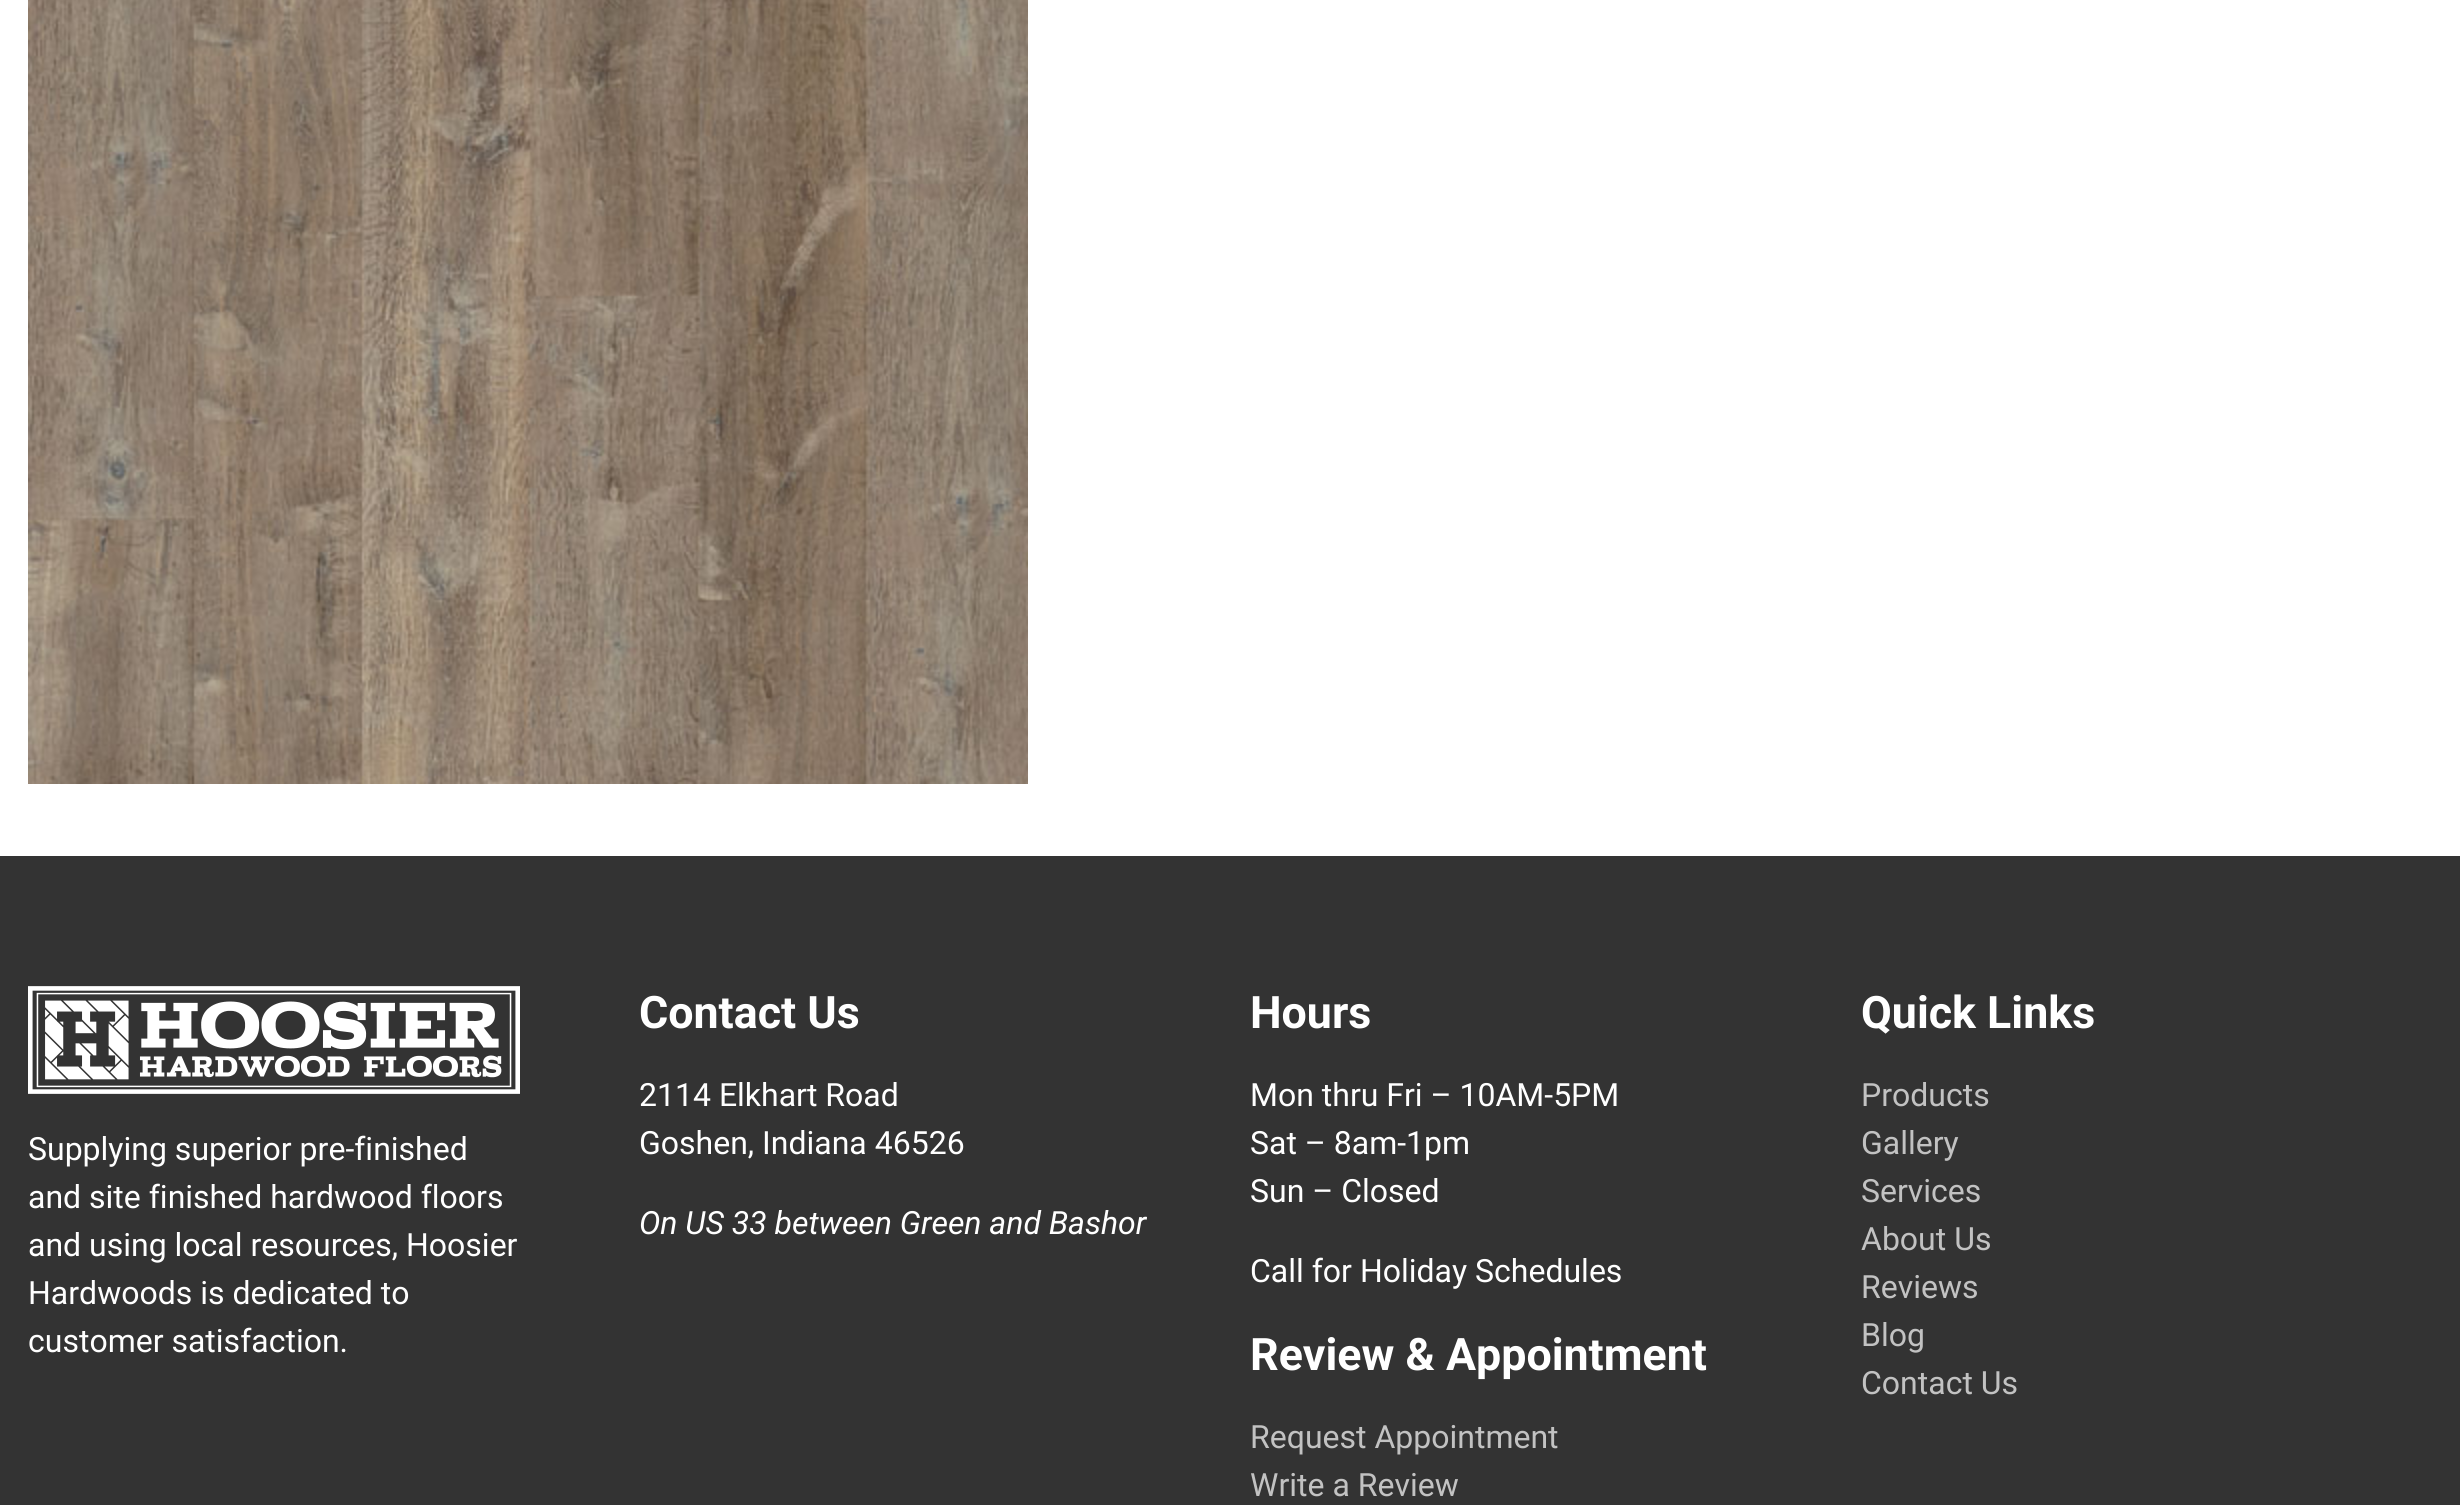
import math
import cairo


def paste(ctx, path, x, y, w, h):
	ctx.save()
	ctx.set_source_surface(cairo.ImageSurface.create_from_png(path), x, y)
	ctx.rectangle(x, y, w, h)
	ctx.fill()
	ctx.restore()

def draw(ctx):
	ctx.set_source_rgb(1, 1, 1)
	ctx.paint()
	paste(ctx, 'media/1.png', 28, 0, 1000, 784)
	ctx.set_source_rgb(0.2, 0.2, 0.2)
	ctx.rectangle(0, 856, 2460, 649)
	ctx.fill()
	paste(ctx, 'media/2.png', 28, 986, 492, 108)
	ctx.select_font_face('Roboto')
	ctx.set_font_size(32)
	ctx.set_source_rgb(1, 1, 1)
	for x, y, s in [
		(28, 1160, 'Supplying superior pre-finished'),
		(28, 1208, 'and site finished hardwood floors'),
		(28, 1256, 'and using local resources, Hoosier'),
		(28, 1304, 'Hardwoods is dedicated to'),
		(28, 1352, 'customer satisfaction.'),
	]:
		ctx.move_to(x, y)
		ctx.show_text(s)
	ctx.select_font_face('Roboto', cairo.FONT_SLANT_NORMAL, cairo.FONT_WEIGHT_BOLD)
	ctx.set_font_size(44.75)
	ctx.move_to(639, 1028)
	ctx.show_text('Contact Us')
	ctx.select_font_face('Roboto')
	ctx.set_font_size(32)
	ctx.move_to(639, 1106)
	ctx.show_text('2114 Elkhart Road')
	ctx.move_to(639, 1154)
	ctx.show_text('Goshen, Indiana 46526')
	ctx.select_font_face('Roboto', cairo.FONT_SLANT_ITALIC)
	ctx.move_to(639, 1234)
	ctx.show_text('On US 33 between Green and Bashor')
	ctx.select_font_face('Roboto', cairo.FONT_SLANT_NORMAL, cairo.FONT_WEIGHT_BOLD)
	ctx.set_font_size(44.75)
	ctx.move_to(1250, 1028)
	ctx.show_text('Hours')
	ctx.select_font_face('Roboto')
	ctx.set_font_size(32)
	for x, y, s in [
		(1250, 1106, 'Mon thru Fri – 10AM-5PM'),
		(1250, 1154, 'Sat – 8am-1pm'),
		(1250, 1202, 'Sun – Closed'),
		(1250, 1282, 'Call for Holiday Schedules'),
	]:
		ctx.move_to(x, y)
		ctx.show_text(s)
	ctx.select_font_face('Roboto', cairo.FONT_SLANT_NORMAL, cairo.FONT_WEIGHT_BOLD)
	ctx.set_font_size(44.75)
	ctx.move_to(1250, 1370)
	ctx.show_text('Review & Appointment')
	ctx.select_font_face('Roboto')
	ctx.set_font_size(32)
	ctx.set_source_rgb(0.761, 0.761, 0.761)
	ctx.move_to(1250, 1448)
	ctx.show_text('Request Appointment')
	ctx.move_to(1250, 1496)
	ctx.show_text('Write a Review')
	ctx.select_font_face('Roboto', cairo.FONT_SLANT_NORMAL, cairo.FONT_WEIGHT_BOLD)
	ctx.set_font_size(44.75)
	ctx.set_source_rgb(1, 1, 1)
	ctx.move_to(1861, 1028)
	ctx.show_text('Quick Links')
	ctx.select_font_face('Roboto')
	ctx.set_font_size(32)
	ctx.set_source_rgb(0.761, 0.761, 0.761)
	for x, y, s in [
		(1861, 1106, 'Products'),
		(1861, 1154, 'Gallery'),
		(1861, 1202, 'Services'),
		(1861, 1250, 'About Us'),
		(1861, 1298, 'Reviews'),
		(1861, 1346, 'Blog'),
		(1861, 1394, 'Contact Us'),
	]:
		ctx.move_to(x, y)
		ctx.show_text(s)


surface = cairo.ImageSurface(cairo.FORMAT_RGB24, 2460, 1505)
ctx = cairo.Context(surface)
options = cairo.FontOptions()
options.set_hint_metrics(cairo.HINT_METRICS_OFF)
options.set_hint_style(cairo.HINT_STYLE_NONE)
ctx.set_font_options(options)
ctx.set_miter_limit(4)
draw(ctx)
surface.write_to_png('image.png')
